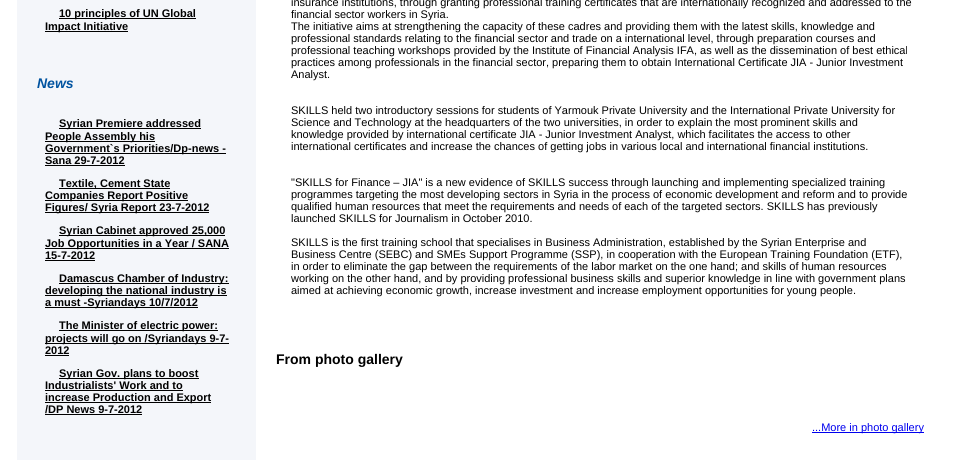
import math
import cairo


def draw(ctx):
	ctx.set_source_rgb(1, 1, 1)
	ctx.paint()
	ctx.set_source_rgb(0.957, 0.961, 0.98)
	ctx.rectangle(17, 0, 239, 460)
	ctx.fill()
	ctx.set_source_rgb(0, 0, 0)
	ctx.rectangle(59, 18, 137, 1)
	ctx.fill()
	ctx.select_font_face('Liberation Sans', cairo.FONT_SLANT_NORMAL, cairo.FONT_WEIGHT_BOLD)
	ctx.set_font_size(11)
	ctx.move_to(59, 17)
	ctx.show_text('10 principles of UN Global')
	ctx.rectangle(45, 31, 83, 1)
	ctx.fill()
	ctx.move_to(45, 30)
	ctx.show_text('Impact Initiative')
	ctx.select_font_face('Liberation Sans', cairo.FONT_SLANT_ITALIC, cairo.FONT_WEIGHT_BOLD)
	ctx.set_font_size(14)
	ctx.set_source_rgb(0, 0.325, 0.627)
	ctx.move_to(37, 88)
	ctx.show_text('News')
	ctx.set_source_rgb(0, 0, 0)
	ctx.rectangle(59, 128, 142, 1)
	ctx.fill()
	ctx.select_font_face('Liberation Sans', cairo.FONT_SLANT_NORMAL, cairo.FONT_WEIGHT_BOLD)
	ctx.set_font_size(11)
	ctx.move_to(59, 127)
	ctx.show_text('Syrian Premiere addressed')
	ctx.rectangle(45, 141, 110, 1)
	ctx.fill()
	ctx.move_to(45, 140)
	ctx.show_text('People Assembly his')
	ctx.rectangle(45, 153, 181, 1)
	ctx.fill()
	ctx.move_to(45, 152)
	ctx.show_text('Government`s Priorities/Dp-news -')
	ctx.move_to(45, 164)
	ctx.show_text('Sana 29-7-2012')
	ctx.rectangle(45, 165, 80, 1)
	ctx.fill()
	ctx.rectangle(59, 188, 111, 1)
	ctx.fill()
	ctx.move_to(59, 187)
	ctx.show_text('Textile, Cement State')
	ctx.rectangle(45, 200, 143, 1)
	ctx.fill()
	ctx.move_to(45, 199)
	ctx.show_text('Companies Report Positive')
	ctx.rectangle(45, 212, 164, 1)
	ctx.fill()
	ctx.move_to(45, 211)
	ctx.show_text('Figures/ Syria Report 23-7-2012')
	ctx.rectangle(59, 235, 166, 1)
	ctx.fill()
	ctx.move_to(59, 234)
	ctx.show_text('Syrian Cabinet approved 25,000')
	ctx.rectangle(45, 248, 184, 1)
	ctx.fill()
	ctx.move_to(45, 247)
	ctx.show_text('Job Opportunities in a Year / SANA')
	ctx.move_to(45, 259)
	ctx.show_text('15-7-2012')
	ctx.rectangle(45, 260, 50, 1)
	ctx.fill()
	ctx.rectangle(59, 283, 170, 1)
	ctx.fill()
	ctx.move_to(59, 282)
	ctx.show_text('Damascus Chamber of Industry:')
	ctx.rectangle(45, 295, 182, 1)
	ctx.fill()
	ctx.move_to(45, 294)
	ctx.show_text('developing the national industry is')
	ctx.rectangle(45, 307, 153, 1)
	ctx.fill()
	ctx.move_to(45, 306)
	ctx.show_text('a must -Syriandays 10/7/2012')
	ctx.rectangle(59, 330, 159, 1)
	ctx.fill()
	ctx.move_to(59, 329)
	ctx.show_text('The Minister of electric power:')
	ctx.rectangle(45, 343, 184, 1)
	ctx.fill()
	ctx.move_to(45, 342)
	ctx.show_text('projects will go on /Syriandays 9-7-')
	ctx.move_to(45, 354)
	ctx.show_text('2012')
	ctx.rectangle(45, 355, 24, 1)
	ctx.fill()
	ctx.rectangle(59, 378, 140, 1)
	ctx.fill()
	ctx.move_to(59, 377)
	ctx.show_text('Syrian Gov. plans to boost')
	ctx.move_to(45, 389)
	ctx.show_text('Industrialists\' Work and to')
	ctx.rectangle(45, 390, 138, 1)
	ctx.fill()
	ctx.rectangle(45, 402, 166, 1)
	ctx.fill()
	ctx.move_to(45, 401)
	ctx.show_text('increase Production and Export')
	ctx.move_to(45, 413)
	ctx.show_text('/DP News 9-7-2012')
	ctx.rectangle(45, 414, 97, 1)
	ctx.fill()
	ctx.select_font_face('Liberation Sans')
	for x, y, s in [
		(291, 6, 'insurance institutions, through granting professional training certificates that are internationally recognized and addressed to the'),
		(291, 18, 'financial sector workers in Syria.'),
		(291, 30, 'The initiative aims at strengthening the capacity of these cadres and providing them with the latest skills, knowledge and'),
		(291, 42, 'professional standards relating to the financial sector and trade on a international level, through preparation courses and'),
		(291, 54, 'professional teaching workshops provided by the Institute of Financial Analysis IFA, as well as the dissemination of best ethical'),
		(291, 66, 'practices among professionals in the financial sector, preparing them to obtain International Certificate JIA - Junior Investment'),
		(291, 78, 'Analyst.'),
		(291, 114, 'SKILLS held two introductory sessions for students of Yarmouk Private University and the International Private University for'),
		(291, 126, 'Science and Technology at the headquarters of the two universities, in order to explain the most prominent skills and'),
		(291, 138, 'knowledge provided by international certificate JIA - Junior Investment Analyst, which facilitates the access to other'),
		(291, 150, 'international certificates and increase the chances of getting jobs in various local and international financial institutions.'),
		(291, 186, '"SKILLS for Finance – JIA" is a new evidence of SKILLS success through launching and implementing specialized training'),
		(291, 198, 'programmes targeting the most developing sectors in Syria in the process of economic development and reform and to provide'),
		(291, 210, 'qualified human resources that meet the requirements and needs of each of the targeted sectors. SKILLS has previously'),
		(291, 222, 'launched SKILLS for Journalism in October 2010.'),
		(291, 246, 'SKILLS is the first training school that specialises in Business Administration, established by the Syrian Enterprise and'),
		(291, 258, 'Business Centre (SEBC) and SMEs Support Programme (SSP), in cooperation with the European Training Foundation (ETF),'),
		(291, 270, 'in order to eliminate the gap between the requirements of the labor market on the one hand; and skills of human resources'),
		(291, 282, 'working on the other hand, and by providing professional business skills and superior knowledge in line with government plans'),
		(291, 294, 'aimed at achieving economic growth, increase investment and increase employment opportunities for young people.'),
	]:
		ctx.move_to(x, y)
		ctx.show_text(s)
	ctx.select_font_face('Liberation Sans', cairo.FONT_SLANT_NORMAL, cairo.FONT_WEIGHT_BOLD)
	ctx.set_font_size(14)
	ctx.move_to(276, 364)
	ctx.show_text('From photo gallery')
	ctx.set_source_rgb(0, 0, 0.933)
	ctx.rectangle(812, 432, 112, 1)
	ctx.fill()
	ctx.select_font_face('Liberation Sans')
	ctx.set_font_size(11)
	ctx.move_to(812, 431)
	ctx.show_text('...More in photo gallery')


surface = cairo.ImageSurface(cairo.FORMAT_RGB24, 964, 460)
ctx = cairo.Context(surface)
options = cairo.FontOptions()
options.set_hint_metrics(cairo.HINT_METRICS_OFF)
options.set_hint_style(cairo.HINT_STYLE_NONE)
ctx.set_font_options(options)
ctx.set_miter_limit(4)
draw(ctx)
surface.write_to_png('image.png')
